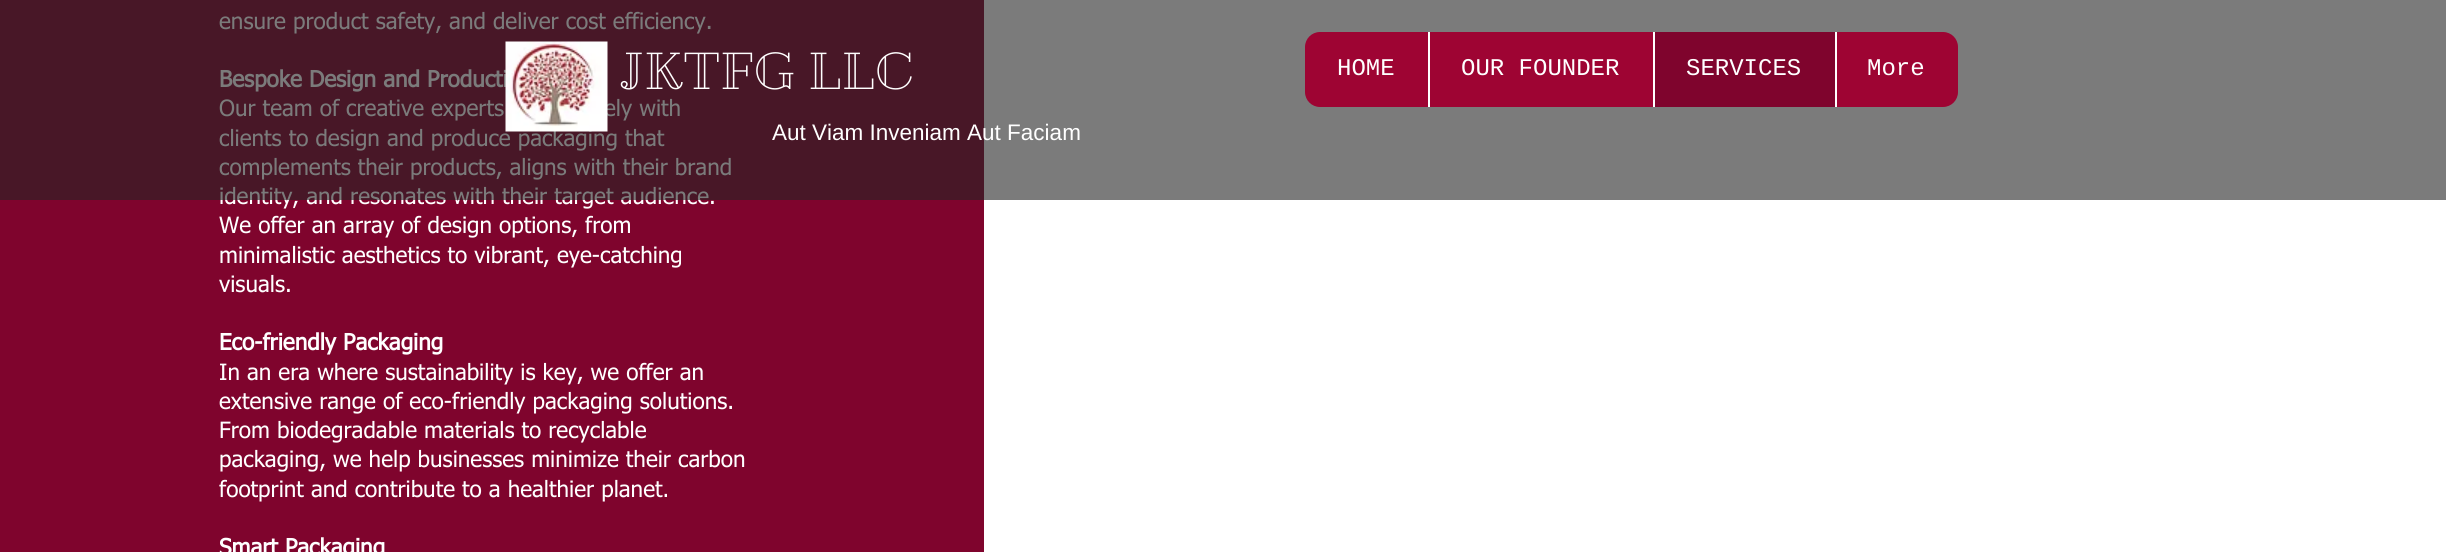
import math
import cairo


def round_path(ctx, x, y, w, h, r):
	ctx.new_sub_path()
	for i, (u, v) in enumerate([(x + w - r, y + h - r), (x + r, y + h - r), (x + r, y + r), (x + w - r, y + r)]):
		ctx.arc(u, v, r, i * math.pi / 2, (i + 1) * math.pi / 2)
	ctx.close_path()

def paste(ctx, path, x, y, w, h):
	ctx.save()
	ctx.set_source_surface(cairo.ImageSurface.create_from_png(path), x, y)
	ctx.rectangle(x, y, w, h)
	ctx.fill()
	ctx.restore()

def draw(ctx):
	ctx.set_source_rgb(1, 1, 1)
	ctx.paint()
	ctx.set_source_rgb(0.498, 0.016, 0.176)
	ctx.rectangle(0, 0, 984, 552)
	ctx.fill()
	ctx.select_font_face('tahoma')
	ctx.set_font_size(22.5)
	ctx.set_source_rgb(1, 1, 1)
	ctx.move_to(219, 29)
	ctx.show_text('ensure product safety, and deliver cost efficiency.')
	ctx.select_font_face('tahoma', cairo.FONT_SLANT_NORMAL, cairo.FONT_WEIGHT_BOLD)
	ctx.move_to(219, 87)
	ctx.show_text('Bespoke Design and Producti')
	ctx.select_font_face('tahoma')
	for x, y, s in [
		(219, 116, 'Our team of creative experts'),
		(604, 116, 'ely with'),
		(219, 146, 'clients to design and produce packaging that'),
		(219, 175, 'complements their products, aligns with their brand'),
		(219, 204, 'identity, and resonates with their target audience.'),
		(219, 233, 'We offer an array of design options, from'),
		(219, 263, 'minimalistic aesthetics to vibrant, eye-catching'),
		(219, 292, 'visuals.'),
	]:
		ctx.move_to(x, y)
		ctx.show_text(s)
	ctx.select_font_face('tahoma', cairo.FONT_SLANT_NORMAL, cairo.FONT_WEIGHT_BOLD)
	ctx.move_to(219, 350)
	ctx.show_text('Eco-friendly Packaging')
	ctx.select_font_face('tahoma')
	for x, y, s in [
		(219, 380, 'In an era where sustainability is key, we offer an'),
		(219, 409, 'extensive range of eco-friendly packaging solutions.'),
		(219, 438, 'From biodegradable materials to recyclable'),
		(219, 467, 'packaging, we help businesses minimize their carbon'),
		(219, 497, 'footprint and contribute to a healthier planet.'),
	]:
		ctx.move_to(x, y)
		ctx.show_text(s)
	ctx.select_font_face('tahoma', cairo.FONT_SLANT_NORMAL, cairo.FONT_WEIGHT_BOLD)
	ctx.move_to(219, 555)
	ctx.show_text('Smart Packaging')
	ctx.set_source_rgba(0.137, 0.137, 0.137, 0.6)
	ctx.rectangle(0, 0, 2446, 200)
	ctx.fill()
	paste(ctx, 'media/1.png', 505, 41, 103, 91)
	ctx.select_font_face('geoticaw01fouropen', cairo.FONT_SLANT_NORMAL, cairo.FONT_WEIGHT_BOLD)
	ctx.set_font_size(48)
	ctx.set_source_rgb(1, 1, 1)
	ctx.move_to(620, 89)
	ctx.show_text('JKTFG LLC')
	ctx.set_source_rgb(0.62, 0.016, 0.2)
	round_path(ctx, 1305, 32, 653, 75, 15)
	ctx.fill()
	ctx.select_font_face('Liberation Mono')
	ctx.set_font_size(24)
	ctx.set_source_rgb(1, 1, 1)
	ctx.move_to(1337, 75)
	ctx.show_text('HOME')
	ctx.rectangle(1428, 32, 2, 75)
	ctx.fill()
	ctx.move_to(1461, 75)
	ctx.show_text('OUR FOUNDER')
	ctx.set_source_rgb(0.498, 0.016, 0.176)
	ctx.rectangle(1655, 32, 180, 75)
	ctx.fill()
	ctx.set_source_rgb(1, 1, 1)
	ctx.rectangle(1653, 32, 2, 75)
	ctx.fill()
	ctx.move_to(1686, 75)
	ctx.show_text('SERVICES')
	ctx.rectangle(1835, 32, 2, 75)
	ctx.fill()
	ctx.move_to(1867, 75)
	ctx.show_text('More')
	ctx.select_font_face('Liberation Sans')
	ctx.set_font_size(22.5)
	ctx.move_to(772, 140)
	ctx.show_text('Aut Viam Inveniam Aut Faciam')


surface = cairo.ImageSurface(cairo.FORMAT_RGB24, 2446, 552)
ctx = cairo.Context(surface)
options = cairo.FontOptions()
options.set_hint_metrics(cairo.HINT_METRICS_OFF)
options.set_hint_style(cairo.HINT_STYLE_NONE)
ctx.set_font_options(options)
ctx.set_miter_limit(4)
draw(ctx)
surface.write_to_png('image.png')
